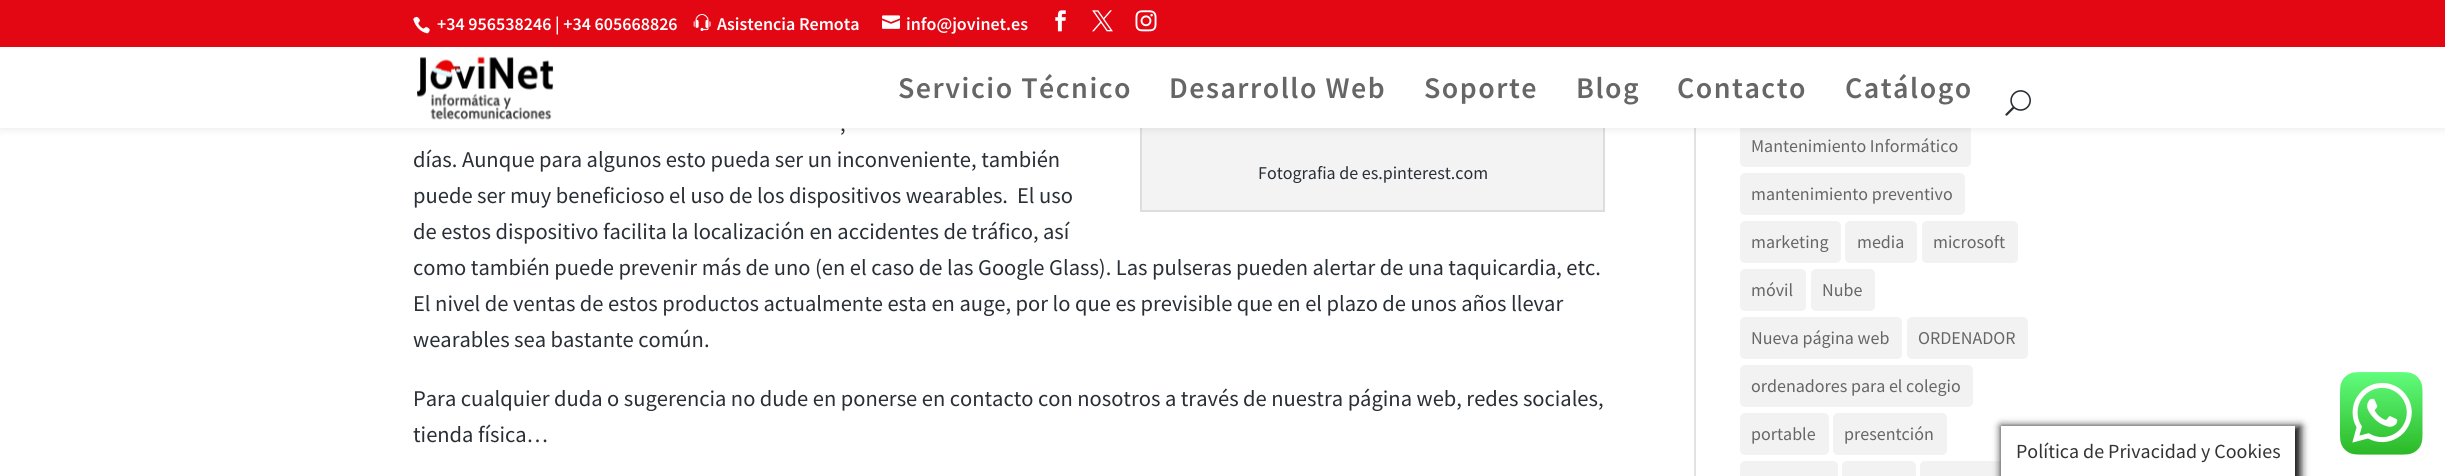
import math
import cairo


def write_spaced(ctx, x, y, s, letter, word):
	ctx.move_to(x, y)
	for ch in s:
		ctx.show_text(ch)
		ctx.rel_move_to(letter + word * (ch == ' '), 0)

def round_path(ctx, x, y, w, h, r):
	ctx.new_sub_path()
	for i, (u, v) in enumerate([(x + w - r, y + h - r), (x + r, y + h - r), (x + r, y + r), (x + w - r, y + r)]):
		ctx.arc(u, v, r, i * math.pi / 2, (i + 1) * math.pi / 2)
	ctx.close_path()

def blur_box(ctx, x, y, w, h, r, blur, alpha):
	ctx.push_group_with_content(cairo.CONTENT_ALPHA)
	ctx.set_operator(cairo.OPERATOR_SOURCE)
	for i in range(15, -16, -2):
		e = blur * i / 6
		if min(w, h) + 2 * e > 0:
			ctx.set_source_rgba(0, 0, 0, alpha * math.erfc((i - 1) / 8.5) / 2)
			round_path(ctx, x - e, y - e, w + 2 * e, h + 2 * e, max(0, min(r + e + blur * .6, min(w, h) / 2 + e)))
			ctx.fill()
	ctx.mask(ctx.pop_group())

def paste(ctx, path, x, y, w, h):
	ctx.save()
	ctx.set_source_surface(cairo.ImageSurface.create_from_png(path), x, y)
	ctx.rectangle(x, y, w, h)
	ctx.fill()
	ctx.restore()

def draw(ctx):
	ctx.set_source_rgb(1, 1, 1)
	ctx.paint()
	ctx.set_source_rgb(0.953, 0.953, 0.953)
	ctx.rectangle(1142, 128, 461, 82)
	ctx.fill()
	ctx.rectangle(1141, 106, 463, 105)
	ctx.set_source_rgb(0.867, 0.867, 0.867)
	ctx.stroke()
	ctx.set_source_rgb(0.949, 0.949, 0.949)
	round_path(ctx, 1740, 125, 231, 42, 5)
	ctx.fill()
	ctx.set_source_rgb(0.886, 0.886, 0.886)
	ctx.rectangle(1694, 128, 2, 348)
	ctx.fill()
	ctx.set_source_rgb(0, 0, 0)
	blur_box(ctx, 0, 47, 2445, 81, 0, 5, 0.1)
	ctx.set_source_rgb(0.89, 0.024, 0.075)
	ctx.rectangle(0, 0, 2445, 47)
	ctx.fill()
	paste(ctx, 'media/1.png', 413, 16, 17, 18)
	ctx.select_font_face('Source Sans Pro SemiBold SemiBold')
	ctx.set_font_size(18)
	ctx.set_source_rgb(1, 1, 1)
	ctx.move_to(437, 30)
	ctx.show_text('+34 956538246 | +34 605668826')
	paste(ctx, 'media/2.png', 693, 14, 18, 17)
	ctx.move_to(717, 30)
	ctx.show_text('Asistencia Remota')
	paste(ctx, 'media/3.png', 882, 15, 18, 14)
	ctx.move_to(906, 30)
	ctx.show_text('info@jovinet.es')
	paste(ctx, 'media/4.png', 1055, 10, 11, 22)
	paste(ctx, 'media/5.png', 1092, 10, 21, 22)
	paste(ctx, 'media/6.png', 1135, 10, 22, 22)
	ctx.rectangle(0, 47, 2445, 81)
	ctx.fill()
	paste(ctx, 'media/7.png', 417, 56, 137, 64)
	ctx.set_font_size(30)
	ctx.set_source_rgb(0.4, 0.4, 0.4)
	for x, y, s in [
		(898, 98, 'Servicio Técnico'),
		(1169, 98, 'Desarrollo Web'),
		(1424, 98, 'Soporte'),
		(1576, 98, 'Blog'),
		(1677, 98, 'Contacto'),
		(1845, 98, 'Catálogo'),
	]:
		write_spaced(ctx, x, y, s, 1.5, 0)
	paste(ctx, 'media/8.png', 2005, 90, 26, 26)
	ctx.select_font_face('Source Sans Pro')
	ctx.set_font_size(22.5)
	ctx.set_source_rgb(0.161, 0.184, 0.212)
	for x, y, s in [
		(840, 131, ','),
		(413, 167, 'días. Aunque para algunos esto pueda ser un inconveniente, también'),
		(413, 203, 'puede ser muy beneficioso el uso de los dispositivos wearables.  El uso'),
		(413, 239, 'de estos dispositivo facilita la localización en accidentes de tráfico, así'),
		(413, 275, 'como también puede prevenir más de uno (en el caso de las Google Glass). Las pulseras pueden alertar de una taquicardia, etc.'),
		(413, 311, 'El nivel de ventas de estos productos actualmente esta en auge, por lo que es previsible que en el plazo de unos años llevar'),
		(413, 347, 'wearables sea bastante común.'),
	]:
		ctx.move_to(x, y)
		ctx.show_text(s)
	ctx.set_font_size(18)
	ctx.move_to(1258, 179)
	ctx.show_text('Fotografia de es.pinterest.com')
	ctx.set_font_size(22.5)
	ctx.move_to(413, 406)
	ctx.show_text('Para cualquier duda o sugerencia no dude en ponerse en contacto con nosotros a través de nuestra página web, redes sociales,')
	ctx.move_to(413, 442)
	ctx.show_text('tienda física…')
	ctx.set_font_size(18)
	ctx.set_source_rgb(0.4, 0.4, 0.4)
	ctx.move_to(1751, 152)
	ctx.show_text('Mantenimiento Informático')
	ctx.set_source_rgb(0.949, 0.949, 0.949)
	round_path(ctx, 1740, 173, 225, 42, 5)
	ctx.fill()
	ctx.set_source_rgb(0.4, 0.4, 0.4)
	ctx.move_to(1751, 200)
	ctx.show_text('mantenimiento preventivo')
	ctx.set_source_rgb(0.949, 0.949, 0.949)
	round_path(ctx, 1740, 221, 101, 42, 5)
	ctx.fill()
	ctx.set_source_rgb(0.4, 0.4, 0.4)
	ctx.move_to(1751, 248)
	ctx.show_text('marketing')
	ctx.set_source_rgb(0.949, 0.949, 0.949)
	round_path(ctx, 1845, 221, 72, 42, 5)
	ctx.fill()
	ctx.set_source_rgb(0.4, 0.4, 0.4)
	ctx.move_to(1857, 248)
	ctx.show_text('media')
	ctx.set_source_rgb(0.949, 0.949, 0.949)
	round_path(ctx, 1922, 221, 96, 42, 5)
	ctx.fill()
	ctx.set_source_rgb(0.4, 0.4, 0.4)
	ctx.move_to(1933, 248)
	ctx.show_text('microsoft')
	ctx.set_source_rgb(0.949, 0.949, 0.949)
	round_path(ctx, 1740, 269, 66, 42, 5)
	ctx.fill()
	ctx.set_source_rgb(0.4, 0.4, 0.4)
	ctx.move_to(1751, 296)
	ctx.show_text('móvil')
	ctx.set_source_rgb(0.949, 0.949, 0.949)
	round_path(ctx, 1811, 269, 64, 42, 5)
	ctx.fill()
	ctx.set_source_rgb(0.4, 0.4, 0.4)
	ctx.move_to(1822, 296)
	ctx.show_text('Nube')
	ctx.set_source_rgb(0.949, 0.949, 0.949)
	round_path(ctx, 1740, 317, 162, 42, 5)
	ctx.fill()
	ctx.set_source_rgb(0.4, 0.4, 0.4)
	ctx.move_to(1751, 344)
	ctx.show_text('Nueva página web')
	ctx.set_source_rgb(0.949, 0.949, 0.949)
	round_path(ctx, 1907, 317, 121, 42, 5)
	ctx.fill()
	ctx.set_source_rgb(0.4, 0.4, 0.4)
	ctx.move_to(1918, 344)
	ctx.show_text('ORDENADOR')
	ctx.set_source_rgb(0.949, 0.949, 0.949)
	round_path(ctx, 1740, 365, 233, 42, 5)
	ctx.fill()
	ctx.set_source_rgb(0.4, 0.4, 0.4)
	ctx.move_to(1751, 392)
	ctx.show_text('ordenadores para el colegio')
	ctx.set_source_rgb(0.949, 0.949, 0.949)
	round_path(ctx, 1740, 413, 89, 42, 5)
	ctx.fill()
	ctx.set_source_rgb(0.4, 0.4, 0.4)
	ctx.move_to(1751, 440)
	ctx.show_text('portable')
	ctx.set_source_rgb(0.949, 0.949, 0.949)
	round_path(ctx, 1833, 413, 114, 42, 5)
	ctx.fill()
	ctx.set_source_rgb(0.4, 0.4, 0.4)
	ctx.move_to(1844, 440)
	ctx.show_text('presentción')
	ctx.set_source_rgb(0.949, 0.949, 0.949)
	round_path(ctx, 1740, 461, 98, 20, 5)
	ctx.fill()
	round_path(ctx, 1842, 461, 74, 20, 5)
	ctx.fill()
	round_path(ctx, 1920, 461, 105, 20, 5)
	ctx.fill()
	ctx.set_source_rgb(0.086, 0.086, 0.086)
	blur_box(ctx, 2001, 426, 300, 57, 0, 4, 1)
	ctx.set_source_rgb(1, 1, 1)
	ctx.rectangle(2001, 426, 294, 50)
	ctx.fill()
	ctx.set_font_size(20)
	ctx.set_source_rgb(0.2, 0.2, 0.2)
	ctx.move_to(2016, 458)
	ctx.show_text('Política de Privacidad y Cookies')
	paste(ctx, 'media/9.png', 2340, 372, 83, 83)


surface = cairo.ImageSurface(cairo.FORMAT_RGB24, 2445, 476)
ctx = cairo.Context(surface)
options = cairo.FontOptions()
options.set_hint_metrics(cairo.HINT_METRICS_OFF)
options.set_hint_style(cairo.HINT_STYLE_NONE)
ctx.set_font_options(options)
ctx.set_miter_limit(4)
draw(ctx)
surface.write_to_png('image.png')
